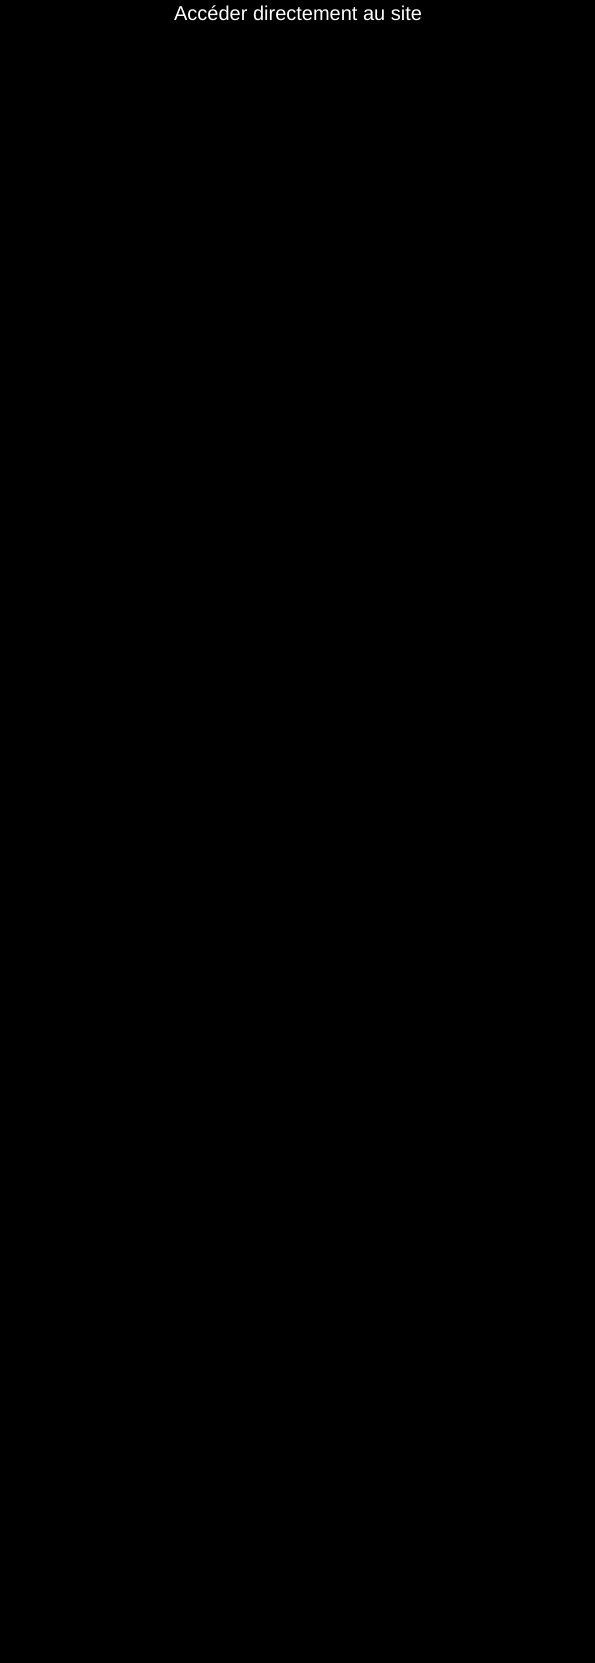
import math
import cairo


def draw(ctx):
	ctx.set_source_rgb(0, 0, 0)
	ctx.paint()
	ctx.select_font_face('Liberation Sans')
	ctx.set_font_size(20)
	ctx.set_source_rgb(1, 1, 1)
	ctx.move_to(174, 20)
	ctx.show_text('Accéder directement au site')


surface = cairo.ImageSurface(cairo.FORMAT_RGB24, 595, 1663)
ctx = cairo.Context(surface)
options = cairo.FontOptions()
options.set_hint_metrics(cairo.HINT_METRICS_OFF)
options.set_hint_style(cairo.HINT_STYLE_NONE)
ctx.set_font_options(options)
ctx.set_miter_limit(4)
draw(ctx)
surface.write_to_png('image.png')
